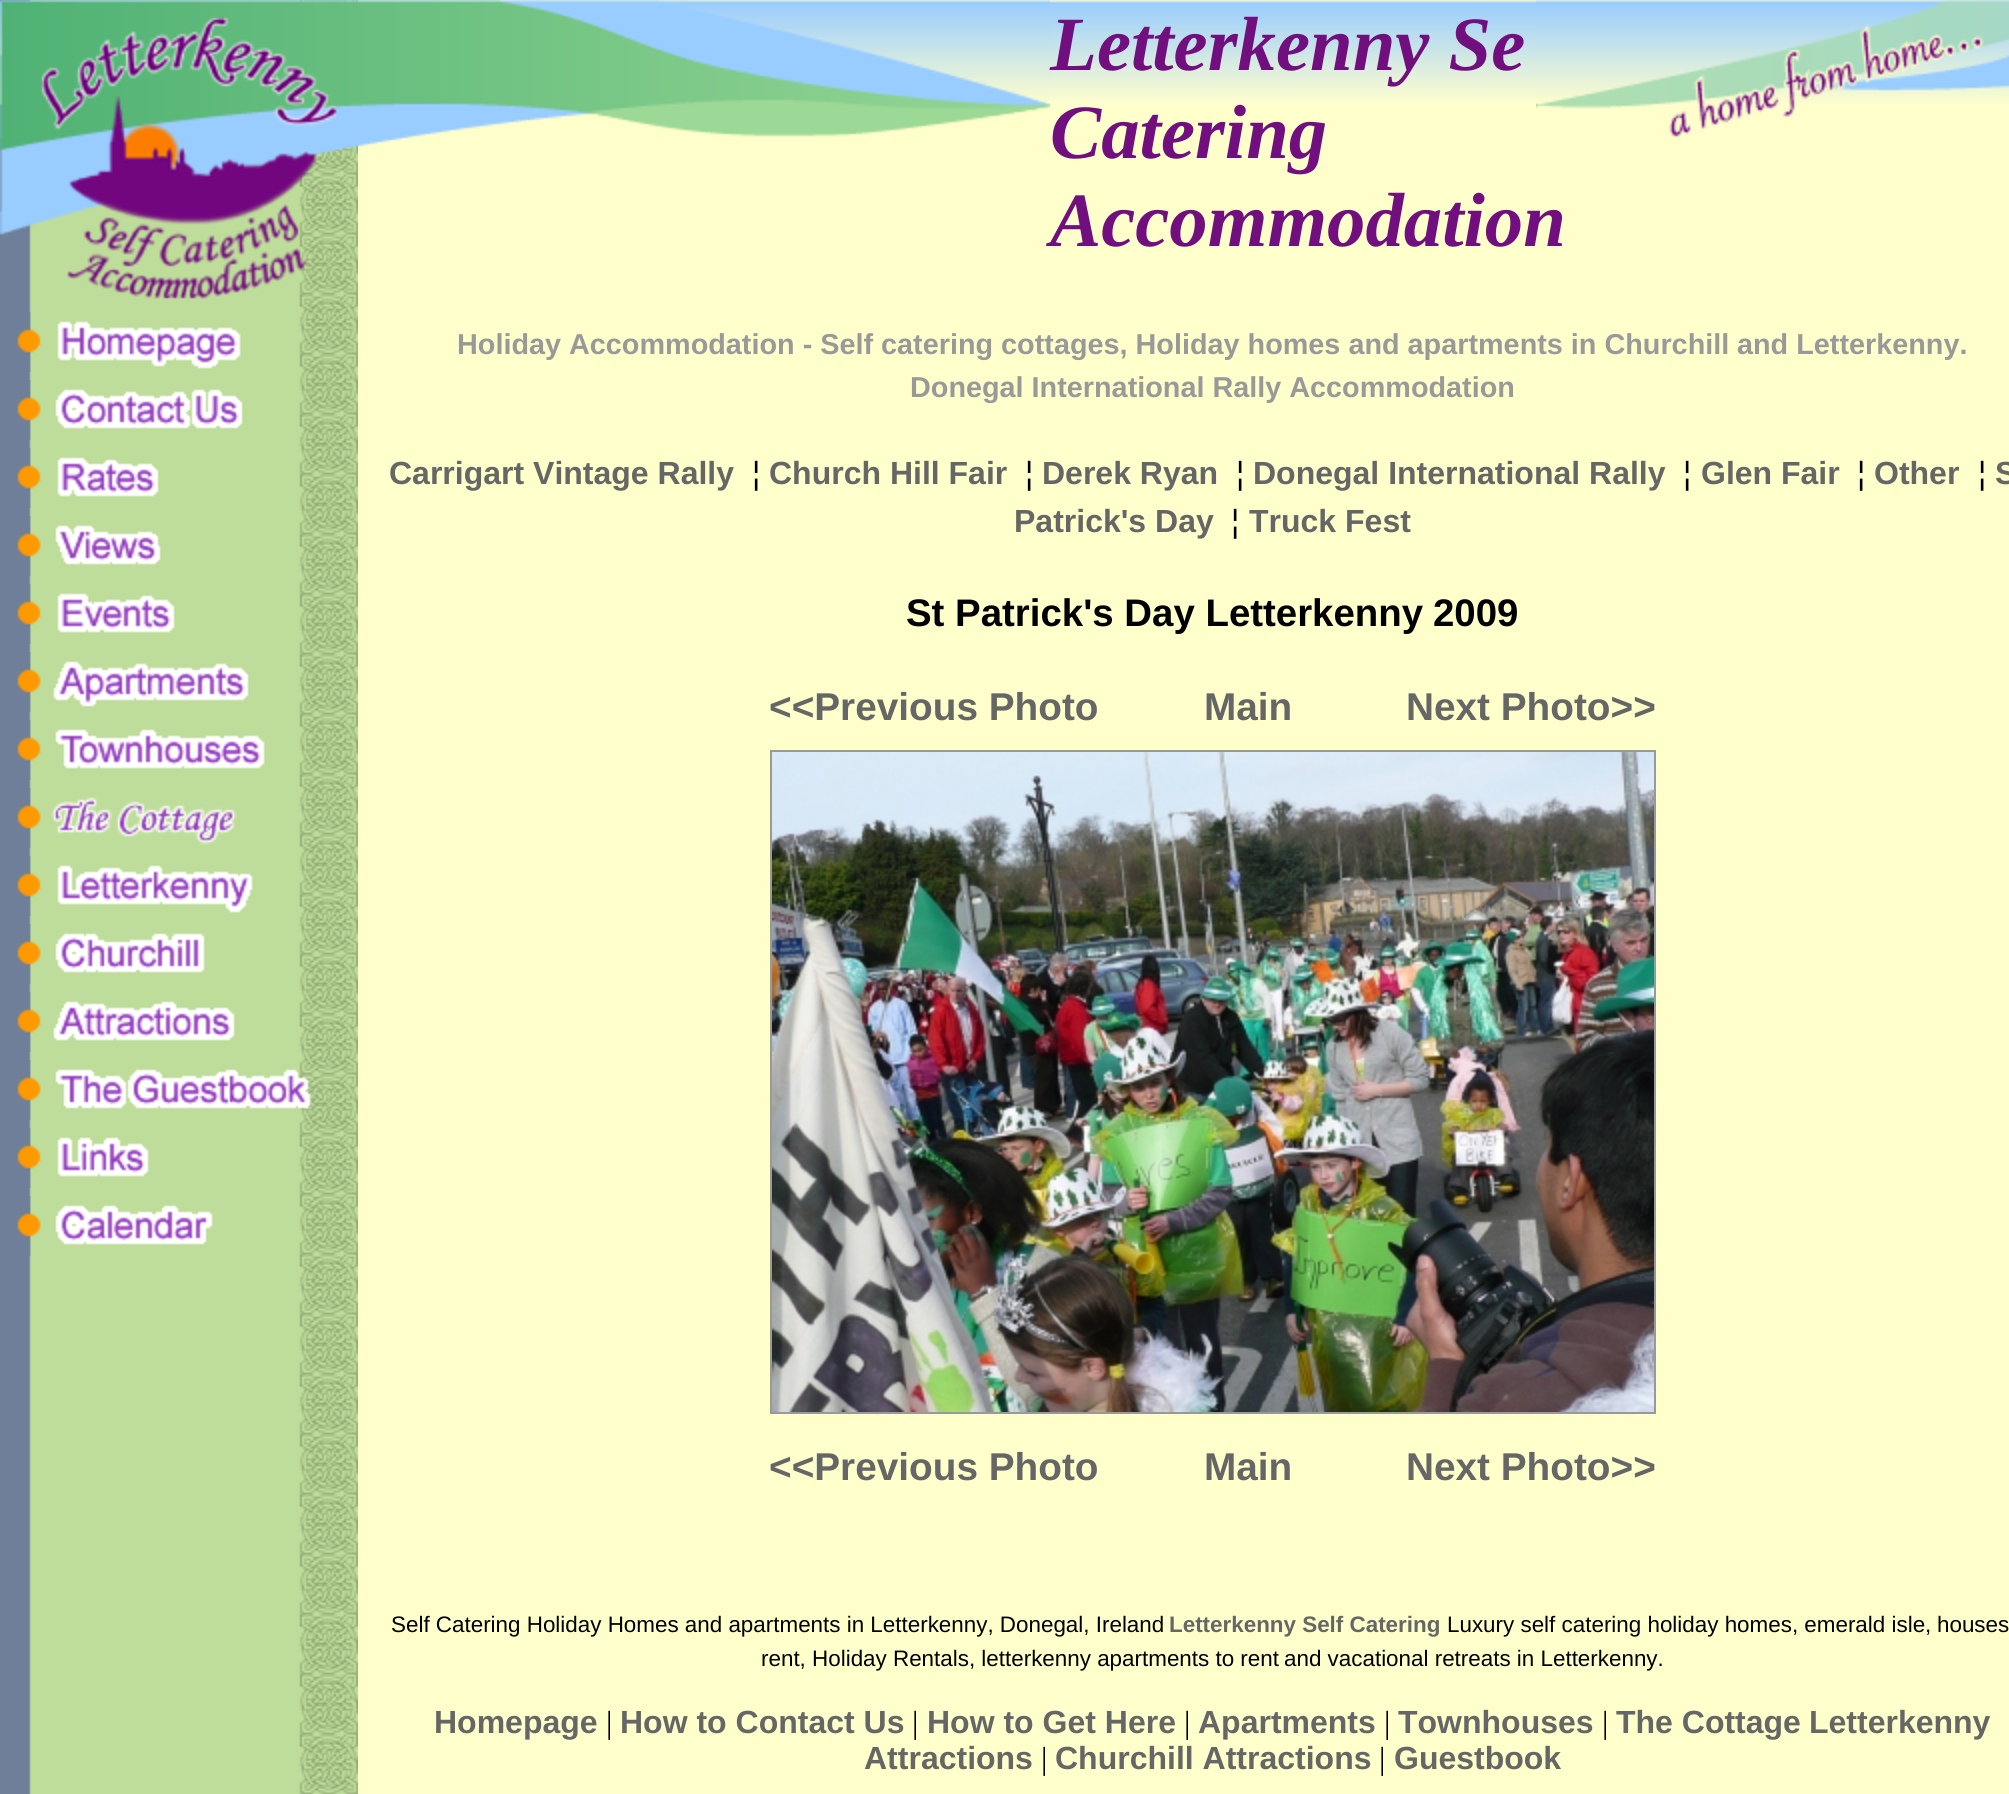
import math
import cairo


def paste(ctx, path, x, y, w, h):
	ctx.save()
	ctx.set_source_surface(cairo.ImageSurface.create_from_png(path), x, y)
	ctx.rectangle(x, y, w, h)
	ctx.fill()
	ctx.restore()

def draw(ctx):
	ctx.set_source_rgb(1, 1, 0.8)
	ctx.paint()
	paste(ctx, 'media/1.png', 0, 0, 358, 1794)
	paste(ctx, 'media/17.png', 0, 0, 2009, 107)
	paste(ctx, 'media/18.png', 0, 0, 1050, 235)
	paste(ctx, 'media/2.png', 41, 17, 296, 282)
	paste(ctx, 'media/3.png', 17, 312, 224, 60)
	paste(ctx, 'media/4.png', 17, 380, 226, 60)
	paste(ctx, 'media/5.png', 17, 448, 142, 60)
	paste(ctx, 'media/6.png', 17, 516, 144, 60)
	paste(ctx, 'media/7.png', 17, 584, 158, 60)
	paste(ctx, 'media/8.png', 17, 652, 232, 60)
	paste(ctx, 'media/9.png', 17, 720, 248, 60)
	paste(ctx, 'media/10.png', 17, 788, 220, 60)
	paste(ctx, 'media/11.png', 17, 856, 236, 60)
	paste(ctx, 'media/12.png', 17, 924, 188, 60)
	paste(ctx, 'media/13.png', 17, 992, 218, 60)
	paste(ctx, 'media/14.png', 17, 1060, 294, 60)
	paste(ctx, 'media/15.png', 17, 1128, 132, 60)
	paste(ctx, 'media/16.png', 17, 1196, 196, 60)
	ctx.select_font_face('Liberation Serif', cairo.FONT_SLANT_ITALIC, cairo.FONT_WEIGHT_BOLD)
	ctx.set_font_size(76.75)
	ctx.set_source_rgb(0.443, 0.059, 0.494)
	for x, y, s in [
		(1050, 70, 'Letterkenny Se'),
		(1050, 158, 'Catering'),
		(1050, 246, 'Accommodation'),
	]:
		ctx.move_to(x, y)
		ctx.show_text(s)
	paste(ctx, 'media/19.png', 1536, 0, 473, 138)
	ctx.select_font_face('Liberation Sans', cairo.FONT_SLANT_NORMAL, cairo.FONT_WEIGHT_BOLD)
	ctx.set_font_size(28.8)
	ctx.set_source_rgb(0.6, 0.6, 0.6)
	for x, y, s in [
		(457, 354, 'Holiday Accommodation - Self catering cottages, Holiday homes and apartments in Churchill'),
		(1737, 354, 'and Letterkenny.'),
		(910, 397, 'Donegal International Rally Accommodation'),
	]:
		ctx.move_to(x, y)
		ctx.show_text(s)
	ctx.set_font_size(32)
	ctx.set_source_rgb(0.4, 0.4, 0.4)
	ctx.move_to(389, 484)
	ctx.show_text('Carrigart Vintage Rally')
	ctx.select_font_face('Liberation Sans')
	ctx.set_source_rgb(0, 0, 0)
	ctx.move_to(752, 484)
	ctx.show_text('¦')
	ctx.select_font_face('Liberation Sans', cairo.FONT_SLANT_NORMAL, cairo.FONT_WEIGHT_BOLD)
	ctx.set_source_rgb(0.4, 0.4, 0.4)
	ctx.move_to(769, 484)
	ctx.show_text('Church Hill Fair')
	ctx.select_font_face('Liberation Sans')
	ctx.set_source_rgb(0, 0, 0)
	ctx.move_to(1025, 484)
	ctx.show_text('¦')
	ctx.select_font_face('Liberation Sans', cairo.FONT_SLANT_NORMAL, cairo.FONT_WEIGHT_BOLD)
	ctx.set_source_rgb(0.4, 0.4, 0.4)
	ctx.move_to(1042, 484)
	ctx.show_text('Derek Ryan')
	ctx.select_font_face('Liberation Sans')
	ctx.set_source_rgb(0, 0, 0)
	ctx.move_to(1236, 484)
	ctx.show_text('¦')
	ctx.select_font_face('Liberation Sans', cairo.FONT_SLANT_NORMAL, cairo.FONT_WEIGHT_BOLD)
	ctx.set_source_rgb(0.4, 0.4, 0.4)
	ctx.move_to(1253, 484)
	ctx.show_text('Donegal International Rally')
	ctx.select_font_face('Liberation Sans')
	ctx.set_source_rgb(0, 0, 0)
	ctx.move_to(1683, 484)
	ctx.show_text('¦')
	ctx.select_font_face('Liberation Sans', cairo.FONT_SLANT_NORMAL, cairo.FONT_WEIGHT_BOLD)
	ctx.set_source_rgb(0.4, 0.4, 0.4)
	ctx.move_to(1701, 484)
	ctx.show_text('Glen Fair')
	ctx.select_font_face('Liberation Sans')
	ctx.set_source_rgb(0, 0, 0)
	ctx.move_to(1857, 484)
	ctx.show_text('¦')
	ctx.select_font_face('Liberation Sans', cairo.FONT_SLANT_NORMAL, cairo.FONT_WEIGHT_BOLD)
	ctx.set_source_rgb(0.4, 0.4, 0.4)
	ctx.move_to(1874, 484)
	ctx.show_text('Other')
	ctx.select_font_face('Liberation Sans')
	ctx.set_source_rgb(0, 0, 0)
	ctx.move_to(1978, 484)
	ctx.show_text('¦')
	ctx.select_font_face('Liberation Sans', cairo.FONT_SLANT_NORMAL, cairo.FONT_WEIGHT_BOLD)
	ctx.set_source_rgb(0.4, 0.4, 0.4)
	ctx.move_to(1995, 484)
	ctx.show_text('S')
	ctx.move_to(1014, 532)
	ctx.show_text('Patrick\'s Day')
	ctx.select_font_face('Liberation Sans')
	ctx.set_source_rgb(0, 0, 0)
	ctx.move_to(1231, 532)
	ctx.show_text('¦')
	ctx.select_font_face('Liberation Sans', cairo.FONT_SLANT_NORMAL, cairo.FONT_WEIGHT_BOLD)
	ctx.set_source_rgb(0.4, 0.4, 0.4)
	ctx.move_to(1249, 532)
	ctx.show_text('Truck Fest')
	ctx.set_font_size(38.4)
	ctx.set_source_rgb(0, 0, 0)
	ctx.move_to(906, 626)
	ctx.show_text('St Patrick\'s Day Letterkenny')
	ctx.move_to(1433, 626)
	ctx.show_text('2009')
	ctx.set_font_size(38.75)
	ctx.set_source_rgb(0.4, 0.4, 0.4)
	for x, y, s in [
		(769, 720, '<<Previous Photo'),
		(1204, 720, 'Main'),
		(1406, 720, 'Next Photo>>'),
	]:
		ctx.move_to(x, y)
		ctx.show_text(s)
	ctx.rectangle(771, 751, 884, 662)
	ctx.set_source_rgb(0.6, 0.6, 0.6)
	ctx.stroke()
	paste(ctx, 'media/20.png', 772, 752, 882, 660)
	ctx.set_source_rgb(0.4, 0.4, 0.4)
	for x, y, s in [
		(769, 1480, '<<Previous Photo'),
		(1204, 1480, 'Main'),
		(1406, 1480, 'Next Photo>>'),
	]:
		ctx.move_to(x, y)
		ctx.show_text(s)
	ctx.select_font_face('Liberation Sans')
	ctx.set_font_size(22.4)
	ctx.set_source_rgb(0, 0, 0)
	ctx.move_to(391, 1632)
	ctx.show_text('Self Catering Holiday Homes and apartments in Letterkenny, Donegal, Ireland')
	ctx.select_font_face('Liberation Sans', cairo.FONT_SLANT_NORMAL, cairo.FONT_WEIGHT_BOLD)
	ctx.set_source_rgb(0.4, 0.4, 0.4)
	ctx.move_to(1169, 1632)
	ctx.show_text('Letterkenny Self Catering')
	ctx.select_font_face('Liberation Sans')
	ctx.set_source_rgb(0, 0, 0)
	for x, y, s in [
		(1447, 1632, 'Luxury self catering holiday homes, emerald isle,'),
		(1937, 1632, 'houses'),
		(761, 1666, 'rent, Holiday Rentals, letterkenny apartments to rent'),
		(1284, 1666, 'and vacational retreats in Letterkenny.'),
	]:
		ctx.move_to(x, y)
		ctx.show_text(s)
	ctx.select_font_face('Liberation Sans', cairo.FONT_SLANT_NORMAL, cairo.FONT_WEIGHT_BOLD)
	ctx.set_font_size(32)
	ctx.set_source_rgb(0.4, 0.4, 0.4)
	ctx.move_to(434, 1733)
	ctx.show_text('Homepage')
	ctx.select_font_face('Liberation Serif')
	ctx.set_source_rgb(0, 0, 0)
	ctx.move_to(606, 1733)
	ctx.show_text('|')
	ctx.select_font_face('Liberation Sans', cairo.FONT_SLANT_NORMAL, cairo.FONT_WEIGHT_BOLD)
	ctx.set_source_rgb(0.4, 0.4, 0.4)
	ctx.move_to(620, 1733)
	ctx.show_text('How to Contact Us')
	ctx.select_font_face('Liberation Serif')
	ctx.set_source_rgb(0, 0, 0)
	ctx.move_to(912, 1733)
	ctx.show_text('|')
	ctx.select_font_face('Liberation Sans', cairo.FONT_SLANT_NORMAL, cairo.FONT_WEIGHT_BOLD)
	ctx.set_source_rgb(0.4, 0.4, 0.4)
	ctx.move_to(927, 1733)
	ctx.show_text('How to Get Here')
	ctx.select_font_face('Liberation Serif')
	ctx.set_source_rgb(0, 0, 0)
	ctx.move_to(1184, 1733)
	ctx.show_text('|')
	ctx.select_font_face('Liberation Sans', cairo.FONT_SLANT_NORMAL, cairo.FONT_WEIGHT_BOLD)
	ctx.set_source_rgb(0.4, 0.4, 0.4)
	ctx.move_to(1198, 1733)
	ctx.show_text('Apartments')
	ctx.select_font_face('Liberation Serif')
	ctx.set_source_rgb(0, 0, 0)
	ctx.move_to(1384, 1733)
	ctx.show_text('|')
	ctx.select_font_face('Liberation Sans', cairo.FONT_SLANT_NORMAL, cairo.FONT_WEIGHT_BOLD)
	ctx.set_source_rgb(0.4, 0.4, 0.4)
	ctx.move_to(1398, 1733)
	ctx.show_text('Townhouses')
	ctx.select_font_face('Liberation Serif')
	ctx.set_source_rgb(0, 0, 0)
	ctx.move_to(1602, 1733)
	ctx.show_text('|')
	ctx.select_font_face('Liberation Sans', cairo.FONT_SLANT_NORMAL, cairo.FONT_WEIGHT_BOLD)
	ctx.set_source_rgb(0.4, 0.4, 0.4)
	for x, y, s in [
		(1616, 1733, 'The Cottage'),
		(1809, 1733, 'Letterkenny'),
		(864, 1769, 'Attractions'),
	]:
		ctx.move_to(x, y)
		ctx.show_text(s)
	ctx.select_font_face('Liberation Serif')
	ctx.set_source_rgb(0, 0, 0)
	ctx.move_to(1041, 1769)
	ctx.show_text('|')
	ctx.select_font_face('Liberation Sans', cairo.FONT_SLANT_NORMAL, cairo.FONT_WEIGHT_BOLD)
	ctx.set_source_rgb(0.4, 0.4, 0.4)
	ctx.move_to(1055, 1769)
	ctx.show_text('Churchill Attractions')
	ctx.select_font_face('Liberation Serif')
	ctx.set_source_rgb(0, 0, 0)
	ctx.move_to(1379, 1769)
	ctx.show_text('|')
	ctx.select_font_face('Liberation Sans', cairo.FONT_SLANT_NORMAL, cairo.FONT_WEIGHT_BOLD)
	ctx.set_source_rgb(0.4, 0.4, 0.4)
	ctx.move_to(1394, 1769)
	ctx.show_text('Guestbook')


surface = cairo.ImageSurface(cairo.FORMAT_RGB24, 2009, 1794)
ctx = cairo.Context(surface)
options = cairo.FontOptions()
options.set_hint_metrics(cairo.HINT_METRICS_OFF)
options.set_hint_style(cairo.HINT_STYLE_NONE)
ctx.set_font_options(options)
ctx.set_miter_limit(4)
draw(ctx)
surface.write_to_png('image.png')
